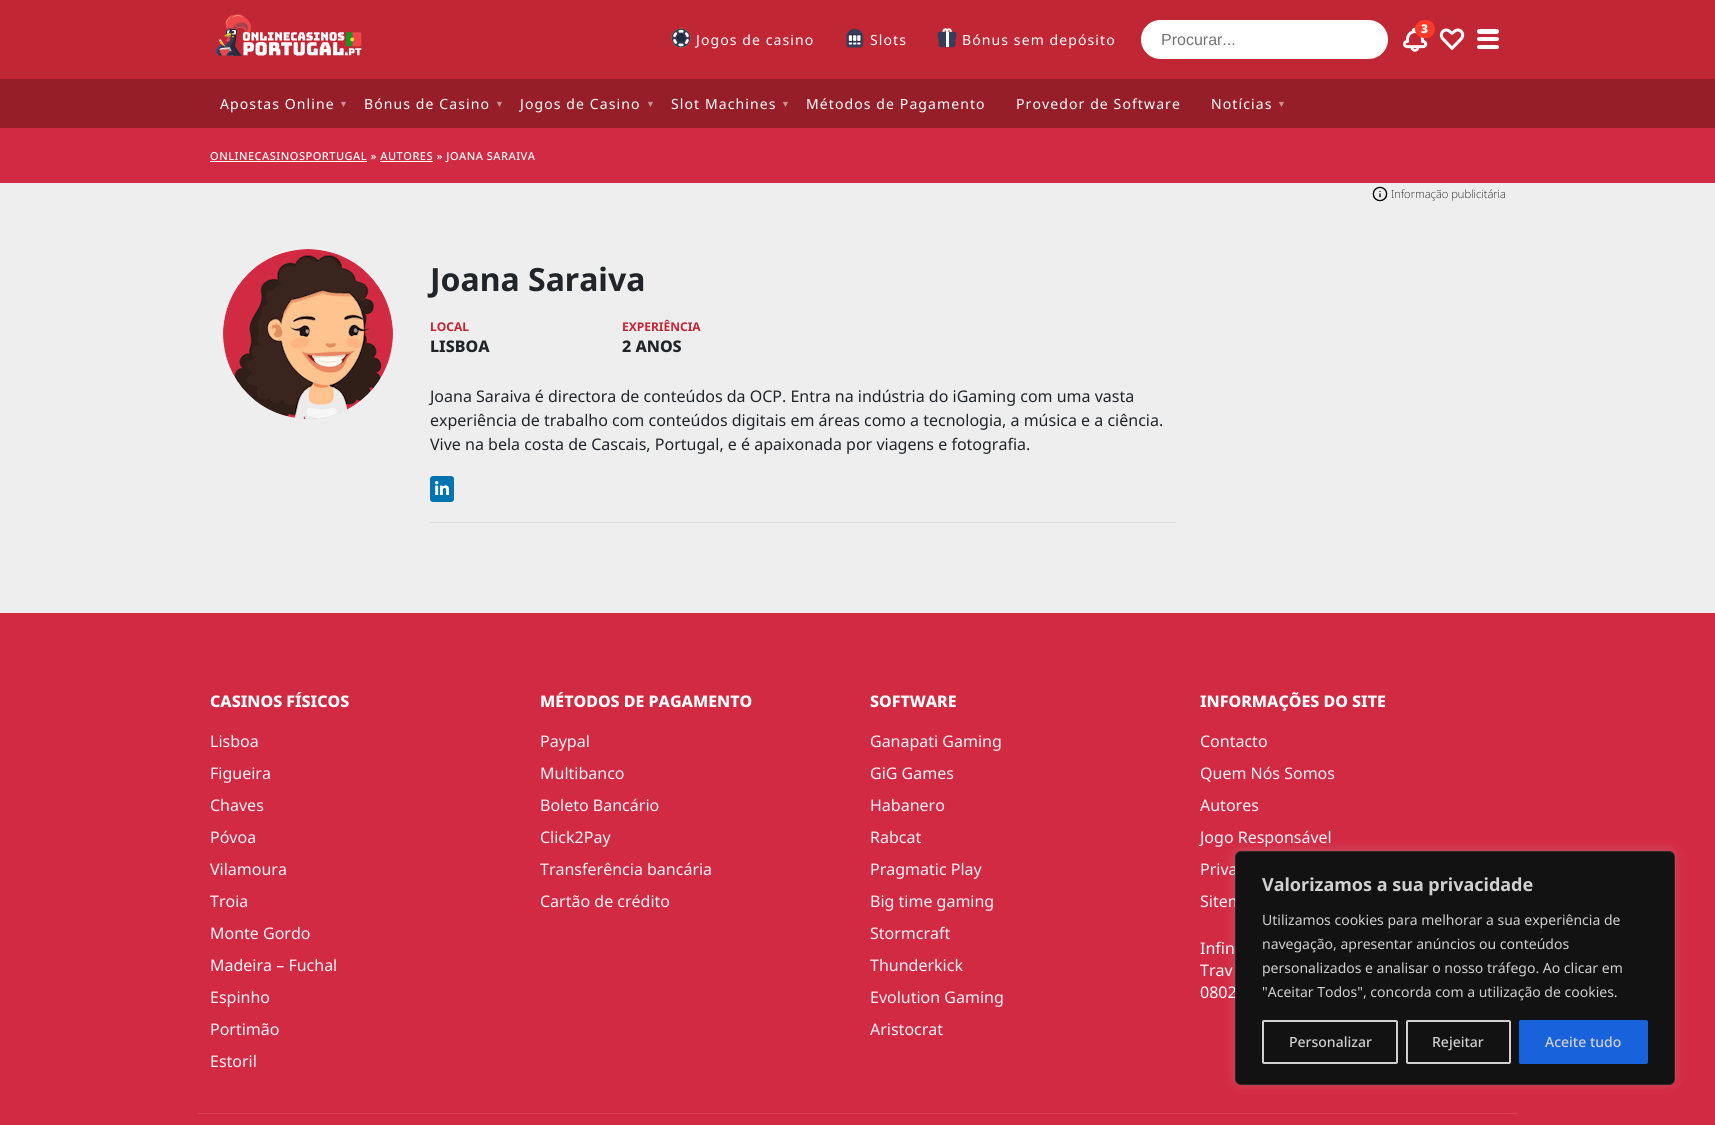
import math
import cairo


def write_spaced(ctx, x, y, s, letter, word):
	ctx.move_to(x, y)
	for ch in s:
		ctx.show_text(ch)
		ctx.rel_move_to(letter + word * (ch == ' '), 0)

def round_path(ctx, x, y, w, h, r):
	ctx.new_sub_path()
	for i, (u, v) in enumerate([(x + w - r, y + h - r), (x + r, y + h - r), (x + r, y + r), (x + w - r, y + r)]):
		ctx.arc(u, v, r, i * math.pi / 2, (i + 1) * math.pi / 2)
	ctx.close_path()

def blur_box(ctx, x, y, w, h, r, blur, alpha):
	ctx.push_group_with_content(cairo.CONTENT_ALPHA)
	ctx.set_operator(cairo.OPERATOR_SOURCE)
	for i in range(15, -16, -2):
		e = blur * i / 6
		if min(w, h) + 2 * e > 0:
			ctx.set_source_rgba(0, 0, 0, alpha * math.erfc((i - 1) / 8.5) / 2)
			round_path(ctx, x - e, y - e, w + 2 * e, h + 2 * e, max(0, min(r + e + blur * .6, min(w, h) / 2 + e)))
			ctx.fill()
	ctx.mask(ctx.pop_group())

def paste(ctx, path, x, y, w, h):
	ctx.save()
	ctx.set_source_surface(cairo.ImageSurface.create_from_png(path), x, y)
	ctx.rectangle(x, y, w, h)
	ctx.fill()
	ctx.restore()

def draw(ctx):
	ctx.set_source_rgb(0.933, 0.933, 0.933)
	ctx.paint()
	ctx.set_source_rgb(0.757, 0.149, 0.208)
	ctx.rectangle(0, 0, 1715, 79)
	ctx.fill()
	paste(ctx, 'media/1.png', 215, 14, 147, 42)
	paste(ctx, 'media/2.png', 671, 28, 20, 20)
	ctx.select_font_face('Noto Sans')
	ctx.set_font_size(14)
	ctx.set_source_rgb(1, 1, 1)
	write_spaced(ctx, 696, 45, 'Jogos de casino', 1.1, 0)
	paste(ctx, 'media/3.png', 846, 28, 18, 20)
	write_spaced(ctx, 870, 45, 'Slots', 1.1, 0)
	paste(ctx, 'media/4.png', 937, 28, 20, 20)
	write_spaced(ctx, 962, 45, 'Bónus sem depósito', 1.1, 0)
	round_path(ctx, 1141, 20, 247, 39, 19.5)
	ctx.fill()
	ctx.select_font_face('Liberation Sans')
	ctx.set_font_size(16)
	ctx.set_source_rgb(0.459, 0.459, 0.459)
	ctx.move_to(1161, 45)
	ctx.show_text('Procurar...')
	paste(ctx, 'media/5.png', 1403, 27, 25, 25)
	ctx.set_source_rgb(0.984, 0.227, 0.169)
	round_path(ctx, 1415, 20, 20, 18, 9)
	ctx.fill()
	ctx.select_font_face('Noto Sans Black')
	ctx.set_font_size(12)
	ctx.set_source_rgb(1, 1, 1)
	ctx.move_to(1421, 33)
	ctx.show_text('3')
	paste(ctx, 'media/6.png', 1439, 28, 26, 22)
	round_path(ctx, 1477, 29, 22, 5, 2.5)
	ctx.fill()
	round_path(ctx, 1477, 37, 22, 4, 2)
	ctx.fill()
	round_path(ctx, 1477, 45, 22, 4, 2)
	ctx.fill()
	ctx.set_source_rgb(0.588, 0.118, 0.161)
	ctx.rectangle(0, 79, 1715, 49)
	ctx.fill()
	ctx.select_font_face('Noto Sans')
	ctx.set_font_size(14)
	ctx.set_source_rgb(1, 1, 1)
	write_spaced(ctx, 220, 109, 'Apostas Online', 1.1, 0)
	ctx.select_font_face('Liberation Sans', cairo.FONT_SLANT_NORMAL, cairo.FONT_WEIGHT_BOLD)
	ctx.set_font_size(9)
	ctx.set_source_rgb(0.796, 0.561, 0.58)
	write_spaced(ctx, 339, 107, '▼', 1.1, 0)
	ctx.select_font_face('Noto Sans')
	ctx.set_font_size(14)
	ctx.set_source_rgb(1, 1, 1)
	write_spaced(ctx, 364, 109, 'Bónus de Casino', 1.1, 0)
	ctx.select_font_face('Liberation Sans', cairo.FONT_SLANT_NORMAL, cairo.FONT_WEIGHT_BOLD)
	ctx.set_font_size(9)
	ctx.set_source_rgb(0.796, 0.561, 0.58)
	write_spaced(ctx, 495, 107, '▼', 1.1, 0)
	ctx.select_font_face('Noto Sans')
	ctx.set_font_size(14)
	ctx.set_source_rgb(1, 1, 1)
	write_spaced(ctx, 520, 109, 'Jogos de Casino', 1.1, 0)
	ctx.select_font_face('Liberation Sans', cairo.FONT_SLANT_NORMAL, cairo.FONT_WEIGHT_BOLD)
	ctx.set_font_size(9)
	ctx.set_source_rgb(0.796, 0.561, 0.58)
	write_spaced(ctx, 646, 107, '▼', 1.1, 0)
	ctx.select_font_face('Noto Sans')
	ctx.set_font_size(14)
	ctx.set_source_rgb(1, 1, 1)
	write_spaced(ctx, 671, 109, 'Slot Machines', 1.1, 0)
	ctx.select_font_face('Liberation Sans', cairo.FONT_SLANT_NORMAL, cairo.FONT_WEIGHT_BOLD)
	ctx.set_font_size(9)
	ctx.set_source_rgb(0.796, 0.561, 0.58)
	write_spaced(ctx, 781, 107, '▼', 1.1, 0)
	ctx.select_font_face('Noto Sans')
	ctx.set_font_size(14)
	ctx.set_source_rgb(1, 1, 1)
	for x, y, s in [
		(806, 109, 'Métodos de Pagamento'),
		(1016, 109, 'Provedor de Software'),
		(1211, 109, 'Notícias'),
	]:
		write_spaced(ctx, x, y, s, 1.1, 0)
	ctx.select_font_face('Liberation Sans', cairo.FONT_SLANT_NORMAL, cairo.FONT_WEIGHT_BOLD)
	ctx.set_font_size(9)
	ctx.set_source_rgb(0.796, 0.561, 0.58)
	write_spaced(ctx, 1277, 107, '▼', 1.1, 0)
	ctx.set_source_rgb(0.827, 0.165, 0.263)
	ctx.rectangle(0, 128, 1715, 55)
	ctx.fill()
	ctx.set_source_rgb(1, 1, 1)
	ctx.rectangle(210, 161, 157, 1)
	ctx.fill()
	ctx.select_font_face('Noto Sans Medium')
	ctx.set_font_size(11)
	write_spaced(ctx, 210, 160, 'ONLINECASINOSPORTUGAL » AUTORES » JOANA SARAIVA', 0.5, 0)
	ctx.rectangle(380, 161, 53, 1)
	ctx.fill()
	paste(ctx, 'media/7.png', 1372, 186, 16, 16)
	ctx.select_font_face('Noto Sans ExtraLight')
	ctx.set_font_size(11.25)
	ctx.set_source_rgb(0, 0, 0)
	ctx.move_to(1391, 198)
	ctx.show_text('Informação publicitária')
	paste(ctx, 'media/8.png', 223, 249, 170, 170)
	ctx.select_font_face('Noto Sans', cairo.FONT_SLANT_NORMAL, cairo.FONT_WEIGHT_BOLD)
	ctx.set_font_size(32)
	ctx.set_source_rgb(0.129, 0.145, 0.161)
	ctx.move_to(430, 291)
	ctx.show_text('Joana Saraiva')
	ctx.set_font_size(12)
	ctx.set_source_rgb(0.757, 0.149, 0.208)
	ctx.move_to(430, 331)
	ctx.show_text('LOCAL')
	ctx.select_font_face('Noto Sans ExtraBold')
	ctx.set_font_size(16)
	ctx.set_source_rgb(0.129, 0.145, 0.161)
	ctx.move_to(430, 352)
	ctx.show_text('LISBOA')
	ctx.select_font_face('Noto Sans', cairo.FONT_SLANT_NORMAL, cairo.FONT_WEIGHT_BOLD)
	ctx.set_font_size(12)
	ctx.set_source_rgb(0.757, 0.149, 0.208)
	ctx.move_to(622, 331)
	ctx.show_text('EXPERIÊNCIA')
	ctx.select_font_face('Noto Sans ExtraBold')
	ctx.set_font_size(16)
	ctx.set_source_rgb(0.129, 0.145, 0.161)
	ctx.move_to(622, 352)
	ctx.show_text('2 ANOS')
	ctx.select_font_face('Noto Sans')
	for x, y, s in [
		(430, 402, 'Joana Saraiva é directora de conteúdos da OCP. Entra na indústria do iGaming com uma vasta'),
		(430, 426, 'experiência de trabalho com conteúdos digitais em áreas como a tecnologia, a música e a ciência.'),
		(430, 450, 'Vive na bela costa de Cascais, Portugal, e é apaixonada por viagens e fotografia.'),
	]:
		ctx.move_to(x, y)
		ctx.show_text(s)
	ctx.set_source_rgb(0.867, 0.867, 0.867)
	ctx.rectangle(430, 522, 746, 1)
	ctx.fill()
	ctx.set_source_rgb(0, 0.451, 0.694)
	round_path(ctx, 430, 476, 24, 26, 3)
	ctx.fill()
	paste(ctx, 'media/9.png', 435, 481, 14, 14)
	ctx.set_source_rgb(0.827, 0.165, 0.263)
	ctx.rectangle(0, 613, 1715, 512)
	ctx.fill()
	ctx.select_font_face('Noto Sans ExtraBold')
	ctx.set_source_rgb(1, 1, 1)
	ctx.move_to(210, 707)
	ctx.show_text('CASINOS FÍSICOS')
	ctx.select_font_face('Noto Sans')
	ctx.set_source_rgb(0.949, 0.953, 0.969)
	for x, y, s in [
		(210, 747, 'Lisboa'),
		(210, 779, 'Figueira'),
		(210, 811, 'Chaves'),
		(210, 843, 'Póvoa'),
		(210, 875, 'Vilamoura'),
		(210, 907, 'Troia'),
		(210, 939, 'Monte Gordo'),
		(210, 971, 'Madeira – Fuchal'),
		(210, 1003, 'Espinho'),
		(210, 1035, 'Portimão'),
		(210, 1067, 'Estoril'),
	]:
		ctx.move_to(x, y)
		ctx.show_text(s)
	ctx.select_font_face('Noto Sans ExtraBold')
	ctx.set_source_rgb(1, 1, 1)
	ctx.move_to(540, 707)
	ctx.show_text('MÉTODOS DE PAGAMENTO')
	ctx.select_font_face('Noto Sans')
	ctx.set_source_rgb(0.949, 0.953, 0.969)
	for x, y, s in [
		(540, 747, 'Paypal'),
		(540, 779, 'Multibanco'),
		(540, 811, 'Boleto Bancário'),
		(540, 843, 'Click2Pay'),
		(540, 875, 'Transferência bancária'),
		(540, 907, 'Cartão de crédito'),
	]:
		ctx.move_to(x, y)
		ctx.show_text(s)
	ctx.select_font_face('Noto Sans ExtraBold')
	ctx.set_source_rgb(1, 1, 1)
	ctx.move_to(870, 707)
	ctx.show_text('SOFTWARE')
	ctx.select_font_face('Noto Sans')
	ctx.set_source_rgb(0.949, 0.953, 0.969)
	for x, y, s in [
		(870, 747, 'Ganapati Gaming'),
		(870, 779, 'GiG Games'),
		(870, 811, 'Habanero'),
		(870, 843, 'Rabcat'),
		(870, 875, 'Pragmatic Play'),
		(870, 907, 'Big time gaming'),
		(870, 939, 'Stormcraft'),
		(870, 971, 'Thunderkick'),
		(870, 1003, 'Evolution Gaming'),
		(870, 1035, 'Aristocrat'),
	]:
		ctx.move_to(x, y)
		ctx.show_text(s)
	ctx.select_font_face('Noto Sans ExtraBold')
	ctx.set_source_rgb(1, 1, 1)
	ctx.move_to(1200, 707)
	ctx.show_text('INFORMAÇÕES DO SITE')
	ctx.select_font_face('Noto Sans')
	ctx.set_source_rgb(0.949, 0.953, 0.969)
	for x, y, s in [
		(1200, 747, 'Contacto'),
		(1200, 779, 'Quem Nós Somos'),
		(1200, 811, 'Autores'),
		(1200, 843, 'Jogo Responsável'),
		(1200, 875, 'Priva'),
		(1200, 907, 'Sitem'),
	]:
		ctx.move_to(x, y)
		ctx.show_text(s)
	ctx.set_source_rgb(1, 1, 1)
	for x, y, s in [
		(1200, 954, 'Infin'),
		(1200, 976, 'Trav'),
		(1200, 998, '0802'),
	]:
		ctx.move_to(x, y)
		ctx.show_text(s)
	ctx.set_source_rgb(0.843, 0.247, 0.337)
	ctx.rectangle(198, 1113, 1320, 1)
	ctx.fill()
	ctx.set_source_rgb(0.675, 0.671, 0.671)
	blur_box(ctx, 1235, 850, 440, 234, 6, 5, 0.3)
	ctx.set_source_rgb(0.071, 0.071, 0.071)
	round_path(ctx, 1235.5, 851.5, 439, 233, 5.5)
	ctx.fill_preserve()
	ctx.set_source_rgb(0.165, 0.165, 0.165)
	ctx.set_line_width(1)
	ctx.stroke()
	ctx.select_font_face('Noto Sans', cairo.FONT_SLANT_NORMAL, cairo.FONT_WEIGHT_BOLD)
	ctx.set_font_size(18)
	ctx.set_source_rgb(0.816, 0.816, 0.816)
	ctx.move_to(1262, 891)
	ctx.show_text('Valorizamos a sua privacidade')
	ctx.select_font_face('Noto Sans')
	ctx.set_font_size(14)
	for x, y, s in [
		(1262, 925, 'Utilizamos cookies para melhorar a sua experiência de'),
		(1262, 949, 'navegação, apresentar anúncios ou conteúdos'),
		(1262, 973, 'personalizados e analisar o nosso tráfego. Ao clicar em'),
		(1262, 997, '"Aceitar Todos", concorda com a utilização de cookies.'),
	]:
		ctx.move_to(x, y)
		ctx.show_text(s)
	round_path(ctx, 1263, 1021, 134, 42, 1)
	ctx.set_line_width(2)
	ctx.stroke()
	ctx.select_font_face('Noto Sans Medium')
	ctx.move_to(1289, 1047)
	ctx.show_text('Personalizar')
	round_path(ctx, 1407, 1021, 103, 42, 1)
	ctx.stroke()
	ctx.move_to(1432, 1047)
	ctx.show_text('Rejeitar')
	ctx.set_source_rgb(0.094, 0.388, 0.863)
	round_path(ctx, 1520, 1021, 127, 42, 1)
	ctx.fill_preserve()
	ctx.stroke()
	ctx.set_source_rgb(0.816, 0.816, 0.816)
	ctx.move_to(1545, 1047)
	ctx.show_text('Aceite tudo')


surface = cairo.ImageSurface(cairo.FORMAT_RGB24, 1715, 1125)
ctx = cairo.Context(surface)
options = cairo.FontOptions()
options.set_hint_metrics(cairo.HINT_METRICS_OFF)
options.set_hint_style(cairo.HINT_STYLE_NONE)
ctx.set_font_options(options)
ctx.set_miter_limit(4)
draw(ctx)
surface.write_to_png('image.png')
